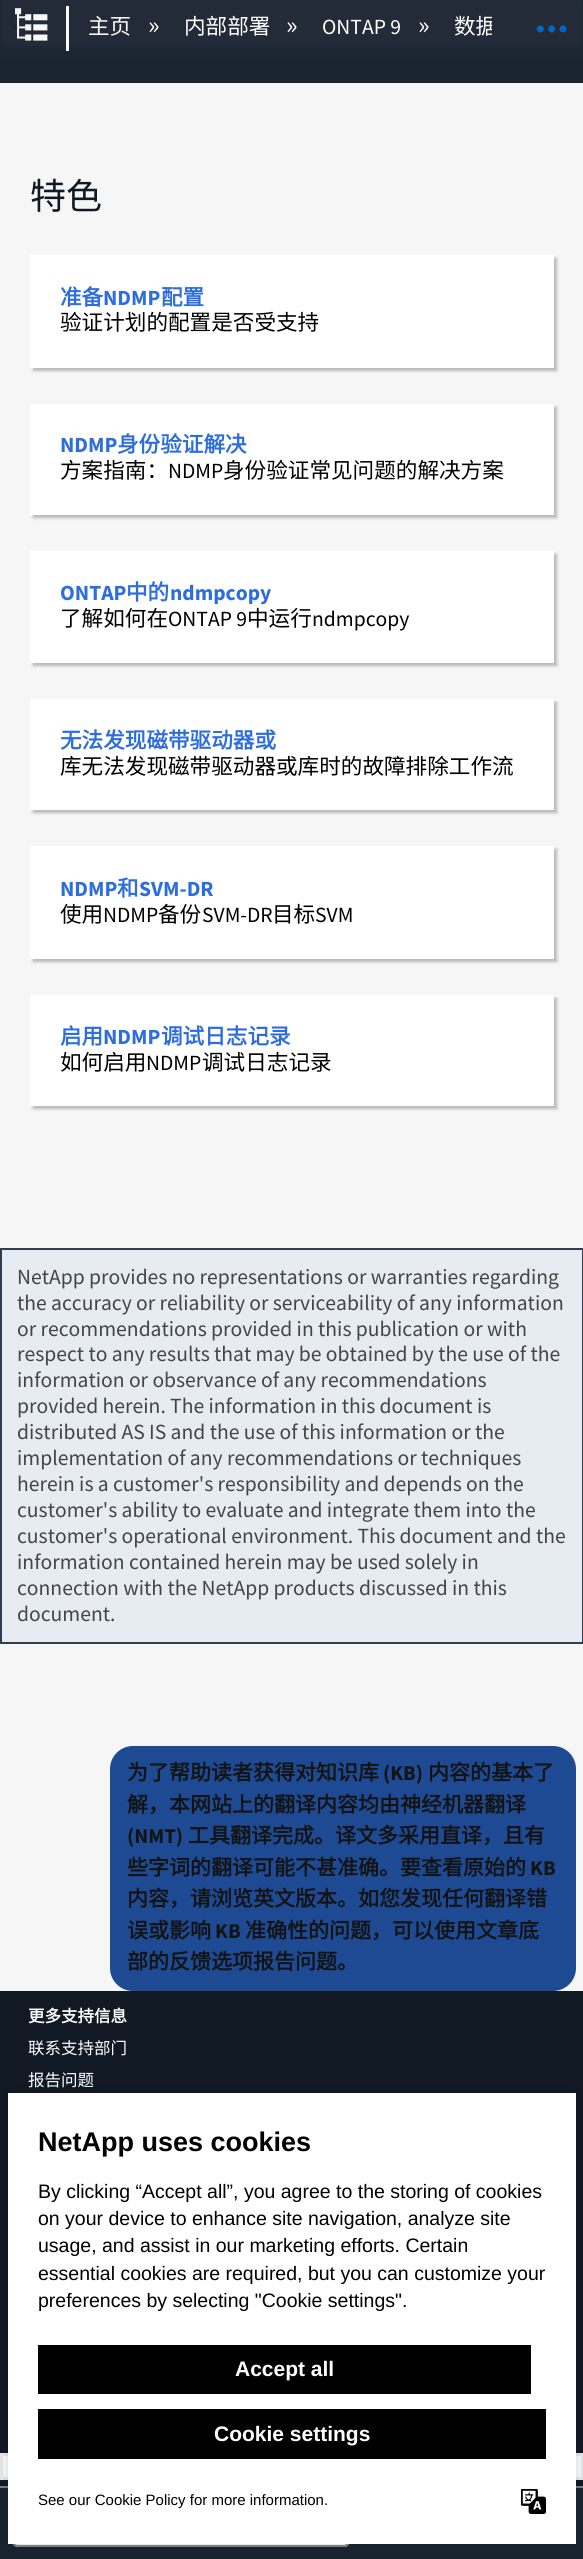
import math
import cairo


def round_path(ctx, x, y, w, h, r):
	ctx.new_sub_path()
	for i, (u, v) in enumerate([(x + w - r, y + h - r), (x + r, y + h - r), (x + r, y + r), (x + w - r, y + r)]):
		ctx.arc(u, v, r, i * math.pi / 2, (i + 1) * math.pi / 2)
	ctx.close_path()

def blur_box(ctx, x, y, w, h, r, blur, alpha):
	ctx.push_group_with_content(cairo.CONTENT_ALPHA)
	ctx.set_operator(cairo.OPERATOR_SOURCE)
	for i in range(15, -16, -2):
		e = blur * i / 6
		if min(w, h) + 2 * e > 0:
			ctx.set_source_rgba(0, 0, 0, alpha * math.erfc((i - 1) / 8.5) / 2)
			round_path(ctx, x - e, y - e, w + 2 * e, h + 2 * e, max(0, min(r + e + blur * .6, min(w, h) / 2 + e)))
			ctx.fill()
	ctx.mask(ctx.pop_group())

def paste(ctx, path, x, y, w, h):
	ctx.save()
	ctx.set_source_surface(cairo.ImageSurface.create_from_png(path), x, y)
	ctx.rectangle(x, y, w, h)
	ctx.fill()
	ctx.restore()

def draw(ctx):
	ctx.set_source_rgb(0.961, 0.961, 0.961)
	ctx.paint()
	ctx.set_source_rgb(0.11, 0.145, 0.196)
	ctx.rectangle(0, 0, 583, 59)
	ctx.fill()
	ctx.set_source_rgb(0.133, 0.169, 0.216)
	round_path(ctx, 1, -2, 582, 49, 5)
	ctx.fill_preserve()
	ctx.set_source_rgb(0.118, 0.153, 0.204)
	ctx.stroke()
	paste(ctx, 'media/3.png', 9, 10, 26, 26)
	paste(ctx, 'media/1.png', 15, 8, 33, 33)
	ctx.set_source_rgba(1, 1, 1, 0.97)
	ctx.rectangle(66, 6, 3, 45)
	ctx.fill()
	ctx.select_font_face('Noto Sans CJK SC')
	ctx.set_font_size(21.6)
	ctx.set_source_rgb(0.973, 0.976, 0.976)
	ctx.move_to(88, 34)
	ctx.show_text('主页')
	ctx.select_font_face('Source Sans Pro')
	ctx.set_font_size(27)
	ctx.set_source_rgb(1, 1, 1)
	ctx.move_to(148, 34)
	ctx.show_text('»')
	ctx.select_font_face('Noto Sans CJK SC')
	ctx.set_font_size(21.6)
	ctx.move_to(184, 34)
	ctx.show_text('内部部署')
	ctx.select_font_face('Source Sans Pro')
	ctx.set_font_size(27)
	ctx.move_to(286, 34)
	ctx.show_text('»')
	ctx.set_font_size(21.6)
	ctx.move_to(322, 34)
	ctx.show_text('ONTAP 9')
	ctx.set_font_size(27)
	ctx.move_to(418, 34)
	ctx.show_text('»')
	ctx.save()
	ctx.rectangle(69, 6, 423, 45)
	ctx.clip()
	ctx.select_font_face('Noto Sans CJK SC')
	ctx.set_font_size(21.6)
	ctx.move_to(454, 34)
	ctx.show_text('数据')
	ctx.restore()
	paste(ctx, 'media/2.png', 536, 25, 31, 8)
	ctx.set_source_rgb(0.106, 0.141, 0.192)
	ctx.rectangle(0, 59, 583, 24)
	ctx.fill()
	ctx.set_source_rgb(0.067, 0.098, 0.145)
	ctx.rectangle(0, 1991, 583, 568)
	ctx.fill()
	ctx.set_source_rgba(0.106, 0.141, 0.192, 0.97)
	ctx.rectangle(0, 2487, 583, 72)
	ctx.fill()
	ctx.set_source_rgba(0.49, 0.518, 0.541, 0.97)
	ctx.rectangle(0, 2486, 583, 2)
	ctx.fill()
	ctx.set_source_rgba(1, 1, 1, 0.97)
	round_path(ctx, 12, 2499, 338, 48, 6)
	ctx.fill()
	round_path(ctx, 13, 2500, 336, 46, 5)
	ctx.set_source_rgba(0.49, 0.518, 0.541, 0.97)
	ctx.stroke()
	ctx.select_font_face('Noto Sans CJK SC')
	ctx.set_font_size(36)
	ctx.set_source_rgb(0.067, 0.098, 0.145)
	ctx.move_to(30, 209)
	ctx.show_text('特色')
	ctx.set_source_rgb(0, 0, 0)
	blur_box(ctx, 33, 258, 524, 113, 0, 1.5, 0.25)
	ctx.set_source_rgb(1, 1, 1)
	ctx.rectangle(30, 255, 524, 113)
	ctx.fill()
	ctx.select_font_face('Noto Sans CJK SC', cairo.FONT_SLANT_NORMAL, cairo.FONT_WEIGHT_BOLD)
	ctx.set_font_size(21.6)
	ctx.set_source_rgb(0.176, 0.427, 0.871)
	ctx.move_to(60, 305)
	ctx.show_text('准备')
	ctx.select_font_face('Source Sans Pro', cairo.FONT_SLANT_NORMAL, cairo.FONT_WEIGHT_BOLD)
	ctx.move_to(103, 305)
	ctx.show_text('NDMP')
	ctx.select_font_face('Noto Sans CJK SC', cairo.FONT_SLANT_NORMAL, cairo.FONT_WEIGHT_BOLD)
	ctx.move_to(161, 305)
	ctx.show_text('配置')
	ctx.select_font_face('Noto Sans CJK SC')
	ctx.set_source_rgb(0, 0, 0)
	ctx.move_to(60, 330)
	ctx.show_text('验证计划的配置是否受支持')
	ctx.set_source_rgb(0, 0, 0)
	blur_box(ctx, 33, 407, 524, 111, 0, 1.5, 0.25)
	ctx.set_source_rgb(1, 1, 1)
	ctx.rectangle(30, 404, 524, 111)
	ctx.fill()
	ctx.select_font_face('Source Sans Pro', cairo.FONT_SLANT_NORMAL, cairo.FONT_WEIGHT_BOLD)
	ctx.set_source_rgb(0.176, 0.427, 0.871)
	ctx.move_to(60, 452)
	ctx.show_text('NDMP')
	ctx.select_font_face('Noto Sans CJK SC', cairo.FONT_SLANT_NORMAL, cairo.FONT_WEIGHT_BOLD)
	ctx.move_to(117, 452)
	ctx.show_text('身份验证解决')
	ctx.select_font_face('Noto Sans CJK SC')
	ctx.set_source_rgb(0, 0, 0)
	ctx.move_to(60, 478)
	ctx.show_text('方案指南：')
	ctx.select_font_face('Source Sans Pro')
	ctx.move_to(168, 478)
	ctx.show_text('NDMP')
	ctx.select_font_face('Noto Sans CJK SC')
	ctx.move_to(223, 478)
	ctx.show_text('身份验证常见问题的解决方案')
	ctx.set_source_rgb(0, 0, 0)
	blur_box(ctx, 33, 554, 524, 112, 0, 1.5, 0.25)
	ctx.set_source_rgb(1, 1, 1)
	ctx.rectangle(30, 551, 524, 112)
	ctx.fill()
	ctx.select_font_face('Source Sans Pro', cairo.FONT_SLANT_NORMAL, cairo.FONT_WEIGHT_BOLD)
	ctx.set_source_rgb(0.176, 0.427, 0.871)
	ctx.move_to(60, 600)
	ctx.show_text('ONTAP')
	ctx.select_font_face('Noto Sans CJK SC', cairo.FONT_SLANT_NORMAL, cairo.FONT_WEIGHT_BOLD)
	ctx.move_to(126, 600)
	ctx.show_text('中的')
	ctx.select_font_face('Source Sans Pro', cairo.FONT_SLANT_NORMAL, cairo.FONT_WEIGHT_BOLD)
	ctx.move_to(170, 600)
	ctx.show_text('ndmpcopy')
	ctx.select_font_face('Noto Sans CJK SC')
	ctx.set_source_rgb(0, 0, 0)
	ctx.move_to(60, 626)
	ctx.show_text('了解如何在')
	ctx.select_font_face('Source Sans Pro')
	ctx.move_to(168, 626)
	ctx.show_text('ONTAP 9')
	ctx.select_font_face('Noto Sans CJK SC')
	ctx.move_to(247, 626)
	ctx.show_text('中运行')
	ctx.select_font_face('Source Sans Pro')
	ctx.move_to(312, 626)
	ctx.show_text('ndmpcopy')
	ctx.set_source_rgb(0, 0, 0)
	blur_box(ctx, 33, 702, 524, 111, 0, 1.5, 0.25)
	ctx.set_source_rgb(1, 1, 1)
	ctx.rectangle(30, 699, 524, 111)
	ctx.fill()
	ctx.select_font_face('Noto Sans CJK SC', cairo.FONT_SLANT_NORMAL, cairo.FONT_WEIGHT_BOLD)
	ctx.set_source_rgb(0.176, 0.427, 0.871)
	ctx.move_to(60, 748)
	ctx.show_text('无法发现磁带驱动器或')
	ctx.select_font_face('Noto Sans CJK SC')
	ctx.set_source_rgb(0, 0, 0)
	ctx.move_to(60, 774)
	ctx.show_text('库无法发现磁带驱动器或库时的故障排除工作流')
	ctx.set_source_rgb(0, 0, 0)
	blur_box(ctx, 33, 849, 524, 113, 0, 1.5, 0.25)
	ctx.set_source_rgb(1, 1, 1)
	ctx.rectangle(30, 846, 524, 113)
	ctx.fill()
	ctx.select_font_face('Source Sans Pro', cairo.FONT_SLANT_NORMAL, cairo.FONT_WEIGHT_BOLD)
	ctx.set_source_rgb(0.176, 0.427, 0.871)
	ctx.move_to(60, 896)
	ctx.show_text('NDMP')
	ctx.select_font_face('Noto Sans CJK SC', cairo.FONT_SLANT_NORMAL, cairo.FONT_WEIGHT_BOLD)
	ctx.move_to(117, 896)
	ctx.show_text('和')
	ctx.select_font_face('Source Sans Pro', cairo.FONT_SLANT_NORMAL, cairo.FONT_WEIGHT_BOLD)
	ctx.move_to(139, 896)
	ctx.show_text('SVM-DR')
	ctx.select_font_face('Noto Sans CJK SC')
	ctx.set_source_rgb(0, 0, 0)
	ctx.move_to(60, 922)
	ctx.show_text('使用')
	ctx.select_font_face('Source Sans Pro')
	ctx.move_to(103, 922)
	ctx.show_text('NDMP')
	ctx.select_font_face('Noto Sans CJK SC')
	ctx.move_to(158, 922)
	ctx.show_text('备份')
	ctx.select_font_face('Source Sans Pro')
	ctx.move_to(202, 922)
	ctx.show_text('SVM-DR')
	ctx.select_font_face('Noto Sans CJK SC')
	ctx.move_to(272, 922)
	ctx.show_text('目标')
	ctx.select_font_face('Source Sans Pro')
	ctx.move_to(315, 922)
	ctx.show_text('SVM')
	ctx.set_source_rgb(0, 0, 0)
	blur_box(ctx, 33, 998, 524, 111, 0, 1.5, 0.25)
	ctx.set_source_rgb(1, 1, 1)
	ctx.rectangle(30, 995, 524, 111)
	ctx.fill()
	ctx.select_font_face('Noto Sans CJK SC', cairo.FONT_SLANT_NORMAL, cairo.FONT_WEIGHT_BOLD)
	ctx.set_source_rgb(0.176, 0.427, 0.871)
	ctx.move_to(60, 1044)
	ctx.show_text('启用')
	ctx.select_font_face('Source Sans Pro', cairo.FONT_SLANT_NORMAL, cairo.FONT_WEIGHT_BOLD)
	ctx.move_to(103, 1044)
	ctx.show_text('NDMP')
	ctx.select_font_face('Noto Sans CJK SC', cairo.FONT_SLANT_NORMAL, cairo.FONT_WEIGHT_BOLD)
	ctx.move_to(161, 1044)
	ctx.show_text('调试日志记录')
	ctx.select_font_face('Noto Sans CJK SC')
	ctx.set_source_rgb(0, 0, 0)
	ctx.move_to(60, 1070)
	ctx.show_text('如何启用')
	ctx.select_font_face('Source Sans Pro')
	ctx.move_to(146, 1070)
	ctx.show_text('NDMP')
	ctx.select_font_face('Noto Sans CJK SC')
	ctx.move_to(202, 1070)
	ctx.show_text('调试日志记录')
	ctx.set_source_rgb(0.902, 0.922, 0.945)
	ctx.rectangle(1, 1249, 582, 394)
	ctx.fill_preserve()
	ctx.set_source_rgb(0.188, 0.243, 0.318)
	ctx.stroke()
	ctx.select_font_face('Source Sans Pro')
	ctx.set_source_rgb(0.271, 0.271, 0.271)
	for x, y, s in [
		(17, 1284, 'NetApp provides no representations or warranties regarding'),
		(17, 1310, 'the accuracy or reliability or serviceability of any information'),
		(17, 1336, 'or recommendations provided in this publication or with'),
		(17, 1361, 'respect to any results that may be obtained by the use of the'),
		(17, 1387, 'information or observance of any recommendations'),
		(17, 1413, 'provided herein. The information in this document is'),
		(17, 1439, 'distributed AS IS and the use of this information or the'),
		(17, 1465, 'implementation of any recommendations or techniques'),
		(17, 1491, 'herein is a customer\'s responsibility and depends on the'),
		(17, 1517, 'customer\'s ability to evaluate and integrate them into the'),
		(17, 1543, 'customer\'s operational environment. This document and the'),
		(17, 1569, 'information contained herein may be used solely in'),
		(17, 1595, 'connection with the NetApp products discussed in this'),
		(17, 1621, 'document.'),
	]:
		ctx.move_to(x, y)
		ctx.show_text(s)
	ctx.set_source_rgb(0.961, 0.984, 1)
	ctx.rectangle(1.5, 2454.5, 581, 24)
	ctx.fill_preserve()
	ctx.set_source_rgb(0.906, 0.906, 0.906)
	ctx.set_line_width(3)
	ctx.stroke()
	ctx.set_source_rgb(0.118, 0.29, 0.576)
	round_path(ctx, 110, 1746, 466, 245, 23)
	ctx.fill()
	ctx.select_font_face('Noto Sans CJK SC', cairo.FONT_SLANT_NORMAL, cairo.FONT_WEIGHT_BOLD)
	ctx.set_font_size(21)
	ctx.set_source_rgb(0.075, 0.075, 0.075)
	ctx.move_to(127, 1780)
	ctx.show_text('为了帮助读者获得对知识库')
	ctx.select_font_face('Source Sans Pro', cairo.FONT_SLANT_NORMAL, cairo.FONT_WEIGHT_BOLD)
	ctx.move_to(383, 1780)
	ctx.show_text('(KB)')
	ctx.select_font_face('Noto Sans CJK SC', cairo.FONT_SLANT_NORMAL, cairo.FONT_WEIGHT_BOLD)
	ctx.move_to(428, 1780)
	ctx.show_text('内容的基本了')
	ctx.move_to(127, 1812)
	ctx.show_text('解，本网站上的翻译内容均由神经机器翻译')
	ctx.select_font_face('Source Sans Pro', cairo.FONT_SLANT_NORMAL, cairo.FONT_WEIGHT_BOLD)
	ctx.move_to(127, 1843)
	ctx.show_text('(NMT)')
	ctx.select_font_face('Noto Sans CJK SC', cairo.FONT_SLANT_NORMAL, cairo.FONT_WEIGHT_BOLD)
	ctx.move_to(188, 1843)
	ctx.show_text('工具翻译完成。译文多采用直译，且有')
	ctx.move_to(127, 1875)
	ctx.show_text('些字词的翻译可能不甚准确。要查看原始的')
	ctx.select_font_face('Source Sans Pro', cairo.FONT_SLANT_NORMAL, cairo.FONT_WEIGHT_BOLD)
	ctx.move_to(530, 1875)
	ctx.show_text('KB')
	ctx.select_font_face('Noto Sans CJK SC', cairo.FONT_SLANT_NORMAL, cairo.FONT_WEIGHT_BOLD)
	ctx.move_to(127, 1906)
	ctx.show_text('内容，请浏览英文版本。如您发现任何翻译错')
	ctx.move_to(127, 1938)
	ctx.show_text('误或影响')
	ctx.select_font_face('Source Sans Pro', cairo.FONT_SLANT_NORMAL, cairo.FONT_WEIGHT_BOLD)
	ctx.move_to(215, 1938)
	ctx.show_text('KB')
	ctx.select_font_face('Noto Sans CJK SC', cairo.FONT_SLANT_NORMAL, cairo.FONT_WEIGHT_BOLD)
	ctx.move_to(245, 1938)
	ctx.show_text('准确性的问题，可以使用文章底')
	ctx.move_to(127, 1969)
	ctx.show_text('部的反馈选项报告问题。')
	ctx.set_font_size(16.5)
	ctx.set_source_rgb(1, 1, 1)
	ctx.move_to(28, 2022)
	ctx.show_text('更多支持信息')
	ctx.select_font_face('Noto Sans CJK SC')
	ctx.move_to(28, 2054)
	ctx.show_text('联系支持部门')
	ctx.move_to(28, 2086)
	ctx.show_text('报告问题')
	ctx.set_source_rgb(0, 0, 0)
	blur_box(ctx, 8, 2093, 568, 451, 0, 6, 0.15)
	ctx.set_source_rgb(1, 1, 1)
	ctx.rectangle(8, 2093, 568, 451)
	ctx.fill()
	ctx.select_font_face('Liberation Sans', cairo.FONT_SLANT_NORMAL, cairo.FONT_WEIGHT_BOLD)
	ctx.set_font_size(27)
	ctx.set_source_rgb(0, 0, 0)
	ctx.move_to(38, 2151)
	ctx.show_text('NetApp uses cookies')
	ctx.select_font_face('Liberation Sans')
	ctx.set_font_size(19.5)
	for x, y, s in [
		(38, 2198, 'By clicking “Accept all”, you agree to the storing of cookies'),
		(38, 2225, 'on your device to enhance site navigation, analyze site'),
		(38, 2252, 'usage, and assist in our marketing efforts. Certain'),
		(38, 2280, 'essential cookies are required, but you can customize your'),
		(38, 2307, 'preferences by selecting "Cookie settings".'),
	]:
		ctx.move_to(x, y)
		ctx.show_text(s)
	ctx.rectangle(38, 2345, 493, 49)
	ctx.fill()
	ctx.select_font_face('Liberation Sans', cairo.FONT_SLANT_NORMAL, cairo.FONT_WEIGHT_BOLD)
	ctx.set_font_size(21)
	ctx.set_source_rgb(1, 1, 1)
	ctx.move_to(235, 2376)
	ctx.show_text('Accept all')
	ctx.set_source_rgb(0, 0, 0)
	ctx.rectangle(38, 2409, 508, 50)
	ctx.fill()
	ctx.set_source_rgb(1, 1, 1)
	ctx.move_to(214, 2441)
	ctx.show_text('Cookie settings')
	ctx.select_font_face('Liberation Sans')
	ctx.set_font_size(15)
	ctx.set_source_rgb(0, 0, 0)
	ctx.move_to(38, 2505)
	ctx.show_text('See our Cookie Policy for more information.')
	paste(ctx, 'media/4.png', 521, 2489, 25, 25)


surface = cairo.ImageSurface(cairo.FORMAT_RGB24, 583, 2559)
ctx = cairo.Context(surface)
options = cairo.FontOptions()
options.set_hint_metrics(cairo.HINT_METRICS_OFF)
options.set_hint_style(cairo.HINT_STYLE_NONE)
ctx.set_font_options(options)
ctx.set_miter_limit(4)
draw(ctx)
surface.write_to_png('image.png')
